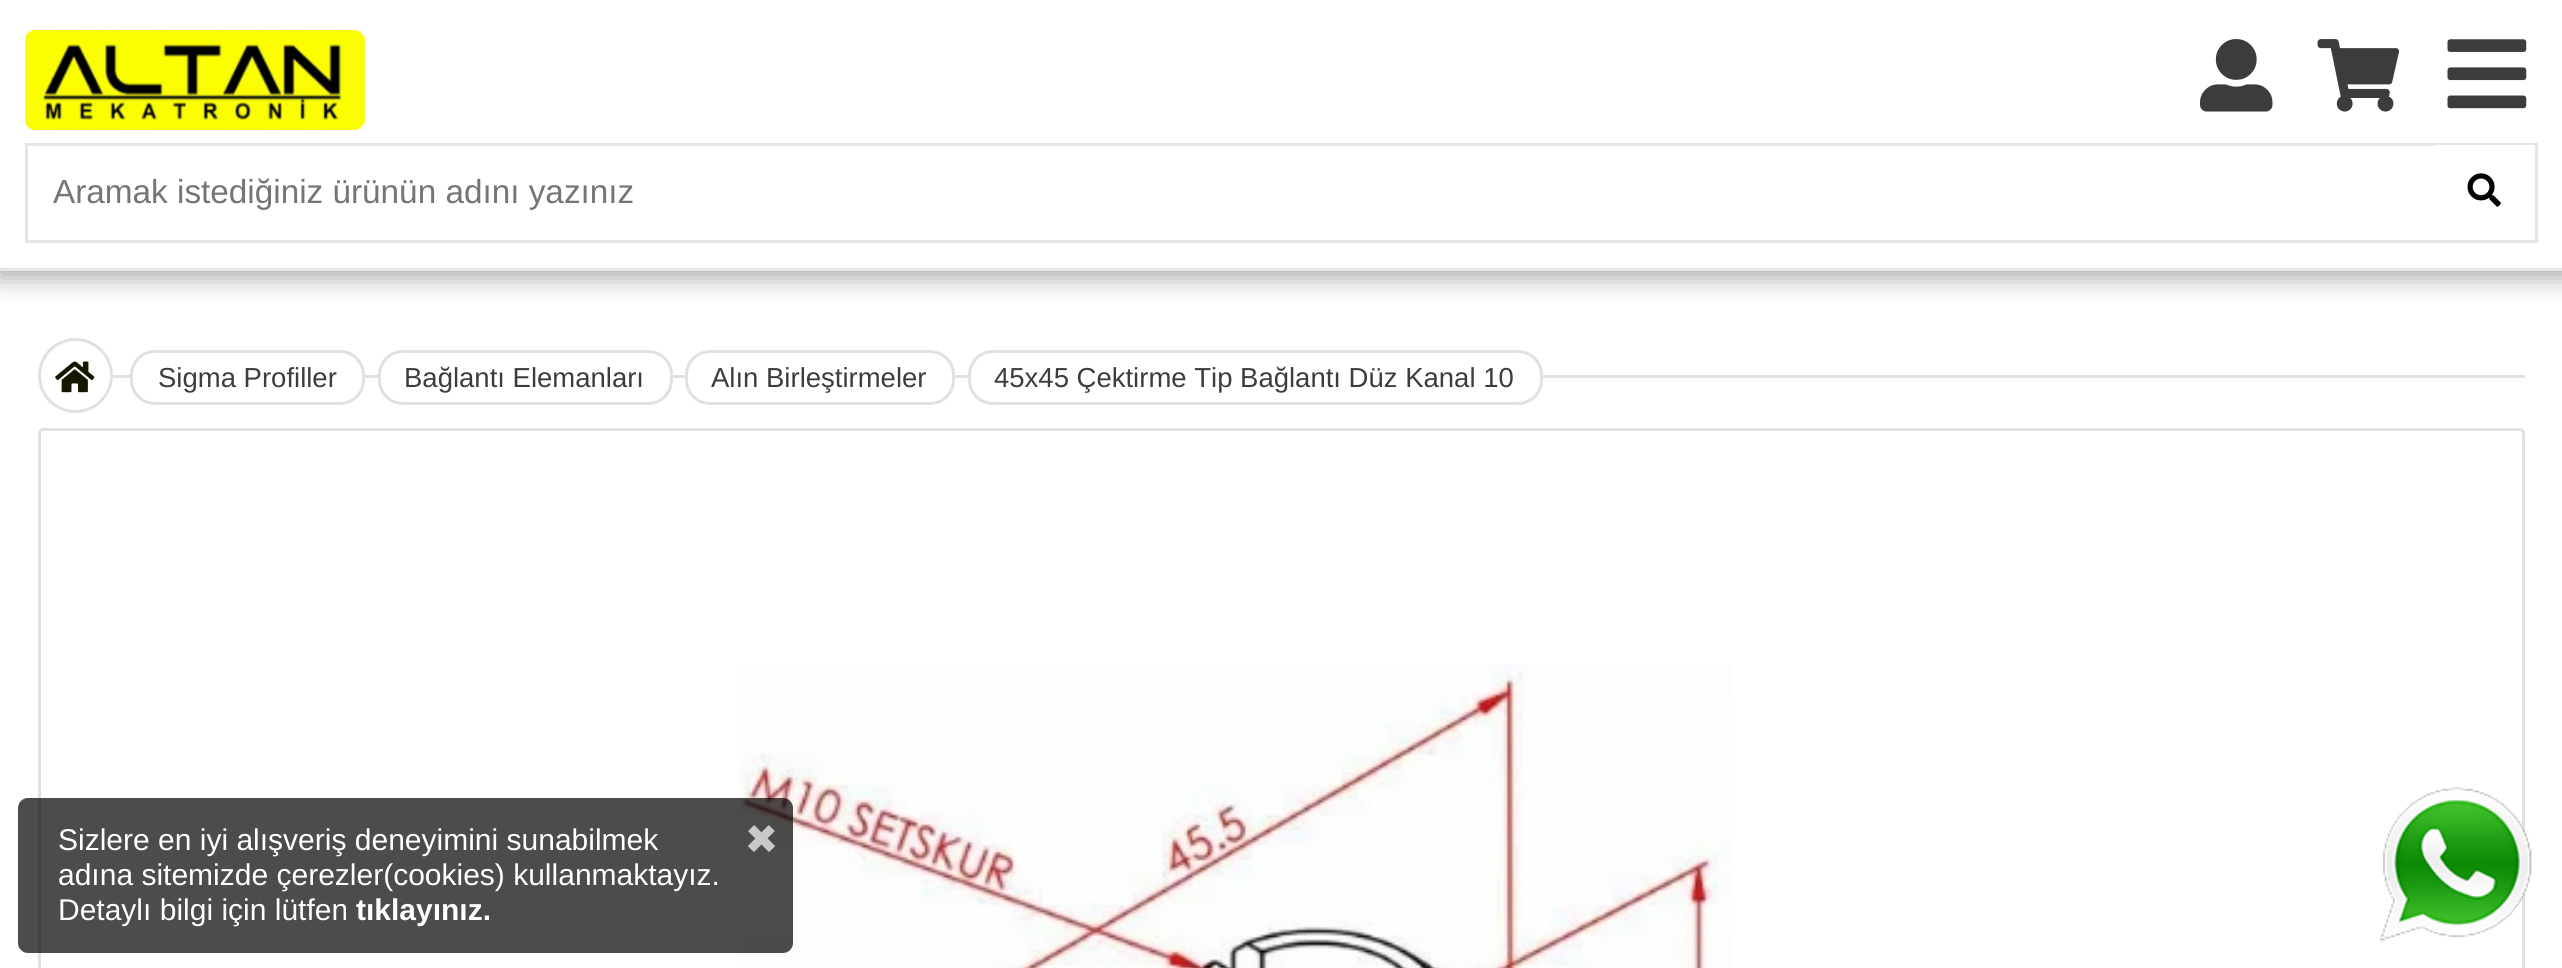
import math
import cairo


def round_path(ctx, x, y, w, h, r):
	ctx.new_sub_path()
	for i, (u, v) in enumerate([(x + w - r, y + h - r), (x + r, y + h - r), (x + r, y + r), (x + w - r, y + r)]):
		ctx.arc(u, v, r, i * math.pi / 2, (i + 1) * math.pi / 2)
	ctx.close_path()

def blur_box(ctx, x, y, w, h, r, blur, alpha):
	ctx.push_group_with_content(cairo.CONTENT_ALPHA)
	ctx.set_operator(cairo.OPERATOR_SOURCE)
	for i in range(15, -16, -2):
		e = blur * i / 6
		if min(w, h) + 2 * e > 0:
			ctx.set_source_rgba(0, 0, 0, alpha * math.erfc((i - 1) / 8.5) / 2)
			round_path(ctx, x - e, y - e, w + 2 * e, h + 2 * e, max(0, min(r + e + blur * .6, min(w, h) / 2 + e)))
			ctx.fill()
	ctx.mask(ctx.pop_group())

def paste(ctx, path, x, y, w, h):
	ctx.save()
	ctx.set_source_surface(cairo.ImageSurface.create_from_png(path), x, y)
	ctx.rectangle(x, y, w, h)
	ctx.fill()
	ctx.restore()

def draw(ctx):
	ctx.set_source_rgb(1, 1, 1)
	ctx.paint()
	ctx.save()
	ctx.rectangle(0, 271, 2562, 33)
	ctx.clip()
	ctx.set_source_rgb(0.667, 0.667, 0.667)
	blur_box(ctx, -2, -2, 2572, 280, 0, 12.5, 1)
	ctx.restore()
	ctx.set_source_rgb(0.898, 0.898, 0.898)
	ctx.rectangle(0, 268, 2562, 3)
	ctx.fill()
	paste(ctx, 'media/1.png', 25, 30, 340, 100)
	paste(ctx, 'media/2.png', 2200, 39, 73, 73)
	paste(ctx, 'media/3.png', 2317, 39, 82, 73)
	paste(ctx, 'media/4.png', 2447, 39, 80, 70)
	ctx.rectangle(26.5, 144.5, 2510, 97)
	ctx.set_line_width(3)
	ctx.stroke()
	ctx.select_font_face('Liberation Sans')
	ctx.set_font_size(33.3)
	ctx.set_source_rgb(0.459, 0.459, 0.459)
	ctx.move_to(53, 203)
	ctx.show_text('Aramak istediğiniz ürünün adını yazınız')
	ctx.set_source_rgb(1, 1, 1)
	ctx.rectangle(2435, 145, 100, 1)
	ctx.fill()
	paste(ctx, 'media/5.png', 2467, 173, 34, 34)
	ctx.set_source_rgb(0.882, 0.882, 0.882)
	ctx.rectangle(38, 375, 2487, 3)
	ctx.fill()
	ctx.set_source_rgb(1, 1, 1)
	ctx.arc(75.5, 375.5, 36, 0, 2 * math.pi)
	ctx.fill_preserve()
	ctx.set_source_rgb(0.882, 0.882, 0.882)
	ctx.stroke()
	paste(ctx, 'media/6.png', 55, 361, 40, 32)
	ctx.set_source_rgb(1, 1, 1)
	round_path(ctx, 131.5, 351.5, 232, 52, 23.5)
	ctx.fill_preserve()
	ctx.set_source_rgb(0.882, 0.882, 0.882)
	ctx.stroke()
	ctx.set_font_size(27.5)
	ctx.set_source_rgb(0.239, 0.239, 0.239)
	ctx.move_to(158, 387)
	ctx.show_text('Sigma Profiller')
	ctx.set_source_rgb(1, 1, 1)
	round_path(ctx, 379.5, 351.5, 292, 52, 23.5)
	ctx.fill_preserve()
	ctx.set_source_rgb(0.882, 0.882, 0.882)
	ctx.stroke()
	ctx.set_source_rgb(0.239, 0.239, 0.239)
	ctx.move_to(404, 387)
	ctx.show_text('Bağlantı Elemanları')
	ctx.set_source_rgb(1, 1, 1)
	round_path(ctx, 686.5, 351.5, 267, 52, 23.5)
	ctx.fill_preserve()
	ctx.set_source_rgb(0.882, 0.882, 0.882)
	ctx.stroke()
	ctx.set_source_rgb(0.239, 0.239, 0.239)
	ctx.move_to(711, 387)
	ctx.show_text('Alın Birleştirmeler')
	ctx.set_source_rgb(1, 1, 1)
	round_path(ctx, 969.5, 351.5, 572, 52, 23.5)
	ctx.fill_preserve()
	ctx.set_source_rgb(0.882, 0.882, 0.882)
	ctx.stroke()
	ctx.set_source_rgb(0.239, 0.239, 0.239)
	ctx.move_to(994, 387)
	ctx.show_text('45x45 Çektirme Tip Bağlantı Düz Kanal 10')
	round_path(ctx, 39.5, 429.5, 2484, 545, 3.5)
	ctx.set_source_rgb(0.882, 0.882, 0.882)
	ctx.stroke()
	paste(ctx, 'media/7.png', 738, 664, 994, 304)
	ctx.set_source_rgba(0, 0, 0, 0.7)
	round_path(ctx, 18, 798, 775, 155, 10)
	ctx.fill()
	ctx.set_font_size(30)
	ctx.set_source_rgb(1, 1, 1)
	for x, y, s in [
		(58, 850, 'Sizlere en iyi alışveriş deneyimini sunabilmek'),
		(58, 885, 'adına sitemizde çerezler(cookies) kullanmaktayız.'),
		(58, 920, 'Detaylı bilgi için lütfen'),
	]:
		ctx.move_to(x, y)
		ctx.show_text(s)
	ctx.select_font_face('Liberation Sans', cairo.FONT_SLANT_NORMAL, cairo.FONT_WEIGHT_BOLD)
	ctx.move_to(356, 920)
	ctx.show_text('tıklayınız.')
	ctx.select_font_face('Poppins', cairo.FONT_SLANT_NORMAL, cairo.FONT_WEIGHT_BOLD)
	ctx.set_font_size(55)
	ctx.set_source_rgb(0.788, 0.788, 0.788)
	ctx.move_to(744, 858)
	ctx.show_text('×')
	paste(ctx, 'media/8.png', 2379, 787, 153, 155)


surface = cairo.ImageSurface(cairo.FORMAT_RGB24, 2562, 968)
ctx = cairo.Context(surface)
options = cairo.FontOptions()
options.set_hint_metrics(cairo.HINT_METRICS_OFF)
options.set_hint_style(cairo.HINT_STYLE_NONE)
ctx.set_font_options(options)
ctx.set_miter_limit(4)
draw(ctx)
surface.write_to_png('image.png')
